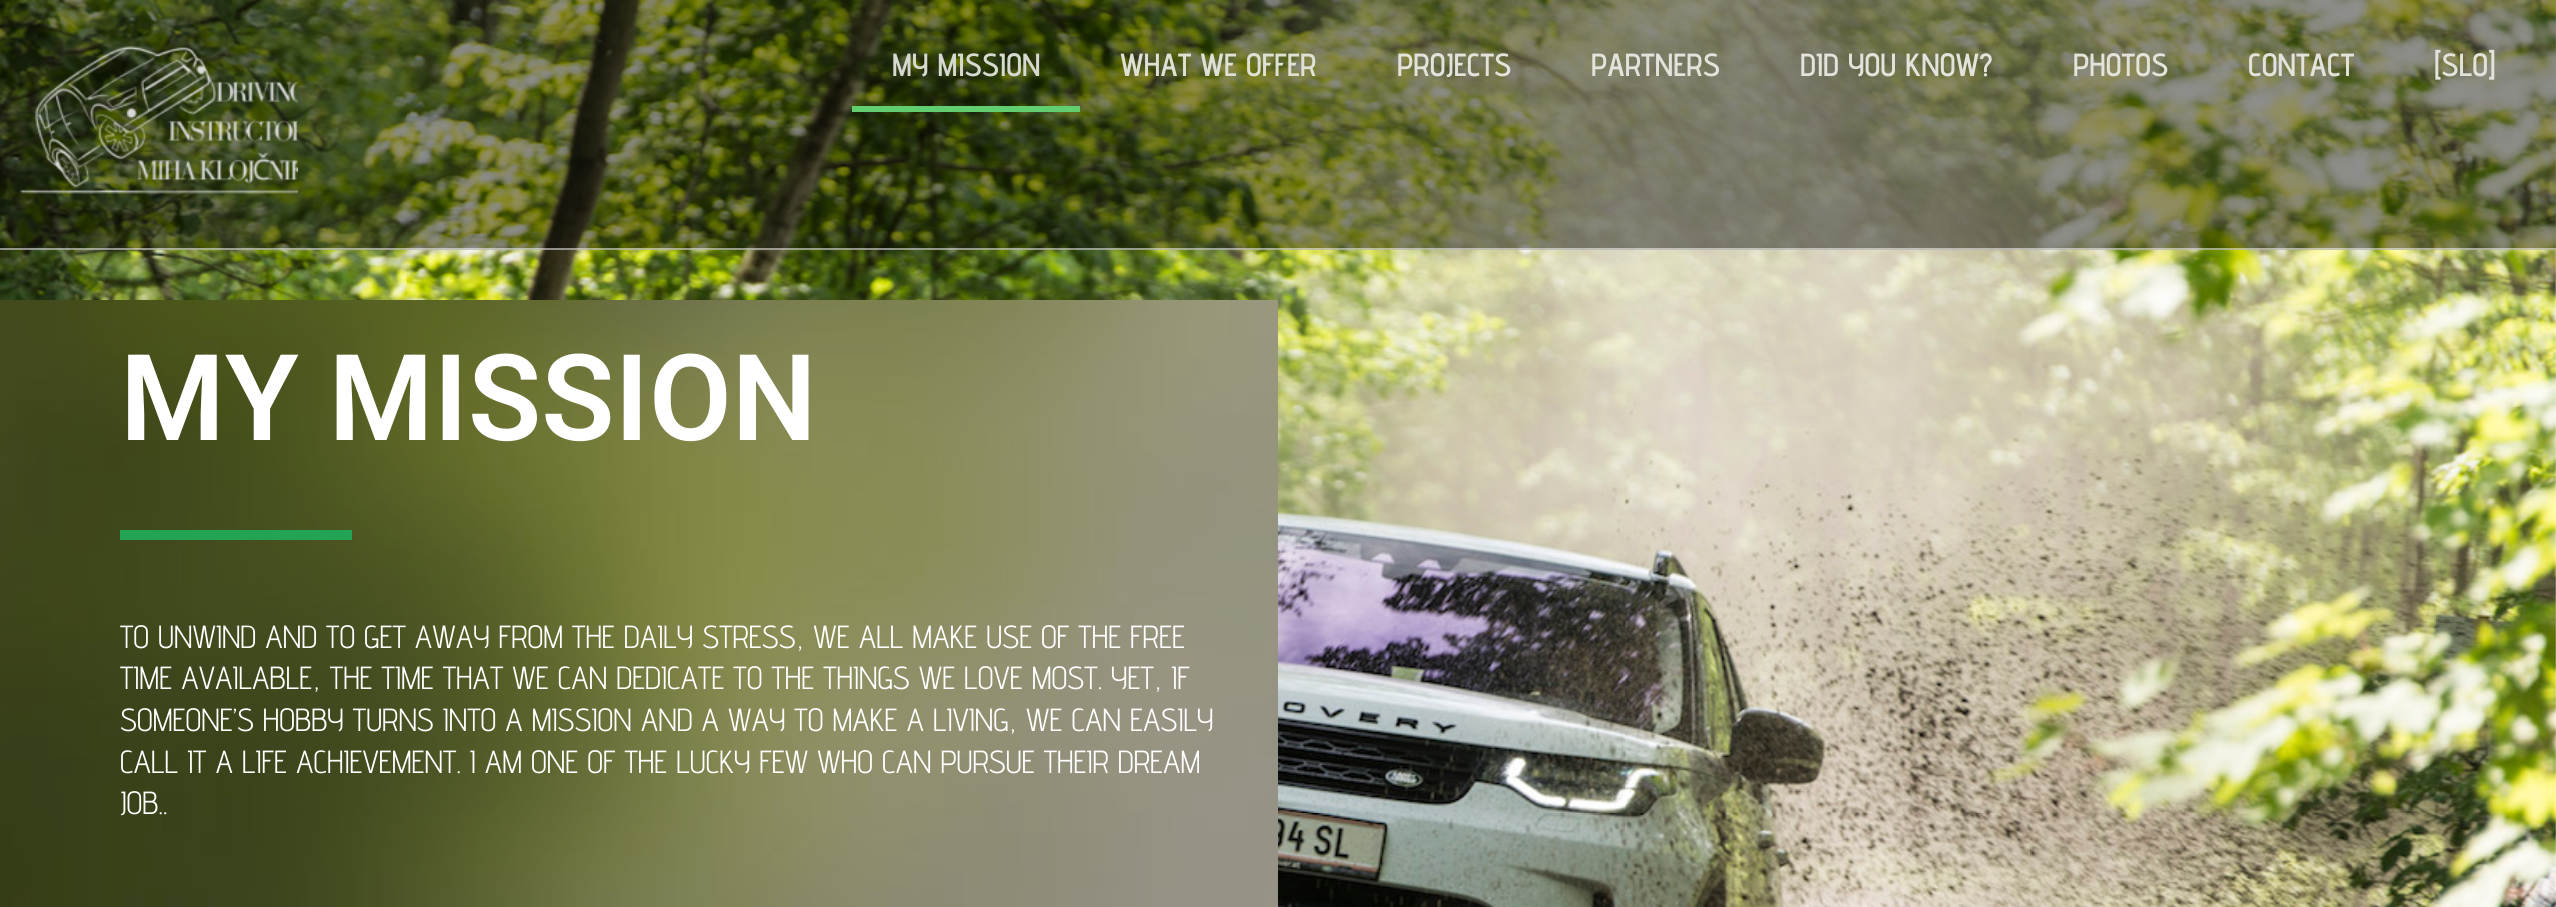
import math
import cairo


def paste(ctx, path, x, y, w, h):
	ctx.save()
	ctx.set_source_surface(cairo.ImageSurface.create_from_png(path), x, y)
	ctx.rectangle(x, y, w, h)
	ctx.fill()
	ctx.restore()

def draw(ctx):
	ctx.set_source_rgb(1, 1, 1)
	ctx.paint()
	paste(ctx, 'media/1.png', 0, 0, 2556, 907)
	ctx.set_source_rgba(0.008, 0.004, 0.004, 0.44)
	ctx.rectangle(0, 0, 2556, 250)
	ctx.fill()
	ctx.set_source_rgba(1, 1, 1, 0.52)
	ctx.rectangle(0, 248, 2556, 2)
	ctx.fill()
	paste(ctx, 'media/2.png', 20, 46, 278, 148)
	ctx.select_font_face('Advent Pro SemiBold')
	ctx.set_font_size(32)
	ctx.set_source_rgb(0.839, 0.851, 0.812)
	ctx.move_to(892, 76)
	ctx.show_text('MY MISSION')
	ctx.set_source_rgb(0.38, 0.808, 0.439)
	ctx.rectangle(852, 106, 228, 6)
	ctx.fill()
	ctx.set_source_rgb(0.878, 0.882, 0.835)
	ctx.move_to(1120, 76)
	ctx.show_text('WHAT WE OFFER')
	ctx.set_source_rgb(0.89, 0.89, 0.863)
	for x, y, s in [
		(1397, 76, 'PROJECTS'),
		(1591, 76, 'PARTNERS'),
		(1800, 76, 'DID YOU KNOW?'),
		(2073, 76, 'PHOTOS'),
		(2248, 76, 'CONTACT'),
		(2434, 76, '[SLO]'),
	]:
		ctx.move_to(x, y)
		ctx.show_text(s)
	paste(ctx, 'media/3.png', 0, 300, 1278, 607)
	ctx.select_font_face('Roboto SemiBold')
	ctx.set_font_size(120)
	ctx.set_source_rgb(1, 1, 1)
	ctx.move_to(120, 440)
	ctx.show_text('MY MISSION')
	ctx.set_source_rgb(0.137, 0.643, 0.333)
	ctx.rectangle(120, 530, 232, 10)
	ctx.fill()
	ctx.select_font_face('Advent Pro')
	ctx.set_font_size(32)
	ctx.set_source_rgb(1, 1, 1)
	for x, y, s in [
		(120, 648, 'TO UNWIND AND TO GET AWAY FROM THE DAILY STRESS, WE ALL MAKE USE OF THE FREE'),
		(120, 689, 'TIME AVAILABLE, THE TIME THAT WE CAN DEDICATE TO THE THINGS WE LOVE MOST. YET, IF'),
		(120, 731, 'SOMEONE’S HOBBY TURNS INTO A MISSION AND A WAY TO MAKE A LIVING, WE CAN EASILY'),
		(120, 773, 'CALL IT A LIFE ACHIEVEMENT. I AM ONE OF THE LUCKY FEW WHO CAN PURSUE THEIR DREAM'),
		(120, 814, 'JOB..'),
	]:
		ctx.move_to(x, y)
		ctx.show_text(s)


surface = cairo.ImageSurface(cairo.FORMAT_RGB24, 2556, 907)
ctx = cairo.Context(surface)
options = cairo.FontOptions()
options.set_hint_metrics(cairo.HINT_METRICS_OFF)
options.set_hint_style(cairo.HINT_STYLE_NONE)
ctx.set_font_options(options)
ctx.set_miter_limit(4)
draw(ctx)
surface.write_to_png('image.png')
